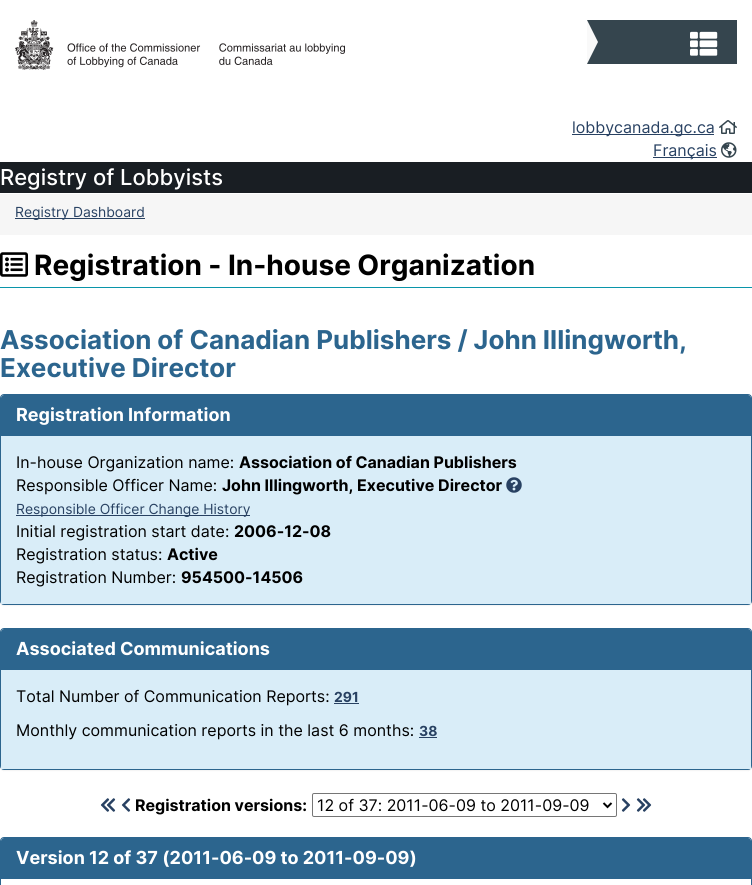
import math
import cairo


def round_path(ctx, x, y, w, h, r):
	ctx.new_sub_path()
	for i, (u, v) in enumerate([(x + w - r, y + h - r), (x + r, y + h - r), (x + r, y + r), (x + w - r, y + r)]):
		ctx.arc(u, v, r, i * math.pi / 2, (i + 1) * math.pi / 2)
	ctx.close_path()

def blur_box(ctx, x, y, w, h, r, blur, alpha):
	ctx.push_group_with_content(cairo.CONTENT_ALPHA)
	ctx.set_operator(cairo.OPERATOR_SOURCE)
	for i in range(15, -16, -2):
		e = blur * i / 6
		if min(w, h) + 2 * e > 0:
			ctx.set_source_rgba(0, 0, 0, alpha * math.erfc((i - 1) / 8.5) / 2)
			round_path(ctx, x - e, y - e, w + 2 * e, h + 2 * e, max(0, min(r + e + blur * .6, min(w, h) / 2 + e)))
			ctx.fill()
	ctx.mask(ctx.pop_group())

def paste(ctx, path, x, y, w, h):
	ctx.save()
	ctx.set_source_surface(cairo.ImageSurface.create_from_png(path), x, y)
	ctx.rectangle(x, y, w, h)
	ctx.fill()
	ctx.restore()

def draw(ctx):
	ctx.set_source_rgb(1, 1, 1)
	ctx.paint()
	paste(ctx, 'media/1.png', 15, 20, 330, 50)
	ctx.set_source_rgb(0.208, 0.271, 0.306)
	ctx.rectangle(587, 20, 150, 44)
	ctx.fill()
	ctx.set_source_rgb(0.973, 0.973, 0.973)
	ctx.new_path()
	ctx.move_to(587, 64)
	ctx.line_to(587, 20)
	ctx.line_to(598, 42)
	ctx.close_path()
	ctx.fill()
	paste(ctx, 'media/2.png', 690, 31, 28, 25)
	ctx.set_source_rgb(0.157, 0.255, 0.384)
	ctx.rectangle(572, 134, 142, 1)
	ctx.fill()
	ctx.select_font_face('Inter')
	ctx.set_font_size(16)
	ctx.move_to(572, 133)
	ctx.show_text('lobbycanada.gc.ca')
	paste(ctx, 'media/3.png', 719, 120, 18, 14)
	ctx.rectangle(653, 157, 64, 1)
	ctx.fill()
	ctx.move_to(653, 156)
	ctx.show_text('Français')
	paste(ctx, 'media/4.png', 721, 142, 16, 16)
	ctx.set_source_rgb(0.098, 0.118, 0.137)
	ctx.rectangle(0, 162, 752, 31)
	ctx.fill()
	ctx.select_font_face('Inter Medium')
	ctx.set_font_size(22)
	ctx.set_source_rgb(1, 1, 1)
	ctx.move_to(0, 185)
	ctx.show_text('Registry of Lobbyists')
	ctx.set_source_rgb(0.961, 0.961, 0.961)
	ctx.rectangle(0, 194, 752, 41)
	ctx.fill()
	ctx.set_source_rgb(0.157, 0.255, 0.384)
	ctx.rectangle(15, 218, 130, 1)
	ctx.fill()
	ctx.select_font_face('Inter')
	ctx.set_font_size(13.9)
	ctx.move_to(15, 217)
	ctx.show_text('Registry Dashboard')
	ctx.set_source_rgb(0.039, 0.584, 0.667)
	ctx.rectangle(0, 287, 752, 1)
	ctx.fill()
	paste(ctx, 'media/5.png', 0, 252, 28, 25)
	ctx.select_font_face('Inter', cairo.FONT_SLANT_NORMAL, cairo.FONT_WEIGHT_BOLD)
	ctx.set_font_size(28)
	ctx.set_source_rgb(0, 0, 0)
	ctx.move_to(34, 275)
	ctx.show_text('Registration - In-house Organization')
	ctx.set_font_size(26)
	ctx.set_source_rgb(0.173, 0.396, 0.557)
	ctx.move_to(0, 349)
	ctx.show_text('Association of Canadian Publishers / John Illingworth,')
	ctx.move_to(0, 377)
	ctx.show_text('Executive Director')
	ctx.set_source_rgb(0, 0, 0)
	blur_box(ctx, 0, 395, 752, 211, 4, 0.5, 0.05)
	round_path(ctx, 0.5, 394.5, 751, 210, 3.5)
	ctx.set_source_rgb(0.173, 0.396, 0.557)
	ctx.set_line_width(1)
	ctx.stroke()
	ctx.new_path()
	ctx.move_to(4, 395)
	ctx.line_to(748, 395)
	ctx.curve_to(749.5, 395, 751, 396.5, 751, 398)
	ctx.line_to(751, 436)
	ctx.line_to(1, 436)
	ctx.line_to(1, 398)
	ctx.curve_to(1, 396.5, 2.5, 395, 4, 395)
	ctx.close_path()
	ctx.fill()
	ctx.set_font_size(18)
	ctx.set_source_rgb(1, 1, 1)
	ctx.move_to(16, 421)
	ctx.show_text('Registration Information')
	ctx.set_source_rgb(0.851, 0.929, 0.969)
	ctx.rectangle(1, 436, 750, 168)
	ctx.fill()
	ctx.select_font_face('Inter')
	ctx.set_font_size(16)
	ctx.set_source_rgb(0, 0, 0)
	ctx.move_to(16, 468)
	ctx.show_text('In-house Organization name:')
	ctx.select_font_face('Inter', cairo.FONT_SLANT_NORMAL, cairo.FONT_WEIGHT_BOLD)
	ctx.move_to(239, 468)
	ctx.show_text('Association of Canadian Publishers')
	ctx.select_font_face('Inter')
	ctx.move_to(16, 491)
	ctx.show_text('Responsible Officer Name:')
	ctx.select_font_face('Inter', cairo.FONT_SLANT_NORMAL, cairo.FONT_WEIGHT_BOLD)
	ctx.move_to(222, 491)
	ctx.show_text('John Illingworth, Executive Director')
	paste(ctx, 'media/6.png', 506, 477, 16, 16)
	ctx.set_source_rgb(0.157, 0.255, 0.384)
	ctx.rectangle(16, 515, 234, 1)
	ctx.fill()
	ctx.select_font_face('Inter')
	ctx.set_font_size(13.9)
	ctx.move_to(16, 514)
	ctx.show_text('Responsible Officer Change History')
	ctx.set_font_size(16)
	ctx.set_source_rgb(0, 0, 0)
	ctx.move_to(16, 537)
	ctx.show_text('Initial registration start date:')
	ctx.select_font_face('Inter', cairo.FONT_SLANT_NORMAL, cairo.FONT_WEIGHT_BOLD)
	ctx.move_to(234, 537)
	ctx.show_text('2006-12-08')
	ctx.select_font_face('Inter')
	ctx.move_to(16, 560)
	ctx.show_text('Registration status:')
	ctx.select_font_face('Inter', cairo.FONT_SLANT_NORMAL, cairo.FONT_WEIGHT_BOLD)
	ctx.move_to(167, 560)
	ctx.show_text('Active')
	ctx.select_font_face('Inter')
	ctx.move_to(16, 583)
	ctx.show_text('Registration Number:')
	ctx.select_font_face('Inter', cairo.FONT_SLANT_NORMAL, cairo.FONT_WEIGHT_BOLD)
	ctx.move_to(181, 583)
	ctx.show_text('954500-14506')
	ctx.set_source_rgb(0, 0, 0)
	blur_box(ctx, 0, 629, 752, 142, 4, 0.5, 0.05)
	round_path(ctx, 0.5, 628.5, 751, 141, 3.5)
	ctx.set_source_rgb(0.173, 0.396, 0.557)
	ctx.stroke()
	ctx.new_path()
	ctx.move_to(4, 629)
	ctx.line_to(748, 629)
	ctx.curve_to(749.5, 629, 751, 630.5, 751, 632)
	ctx.line_to(751, 670)
	ctx.line_to(1, 670)
	ctx.line_to(1, 632)
	ctx.curve_to(1, 630.5, 2.5, 629, 4, 629)
	ctx.close_path()
	ctx.fill()
	ctx.set_font_size(18)
	ctx.set_source_rgb(1, 1, 1)
	ctx.move_to(16, 655)
	ctx.show_text('Associated Communications')
	ctx.set_source_rgb(0.851, 0.929, 0.969)
	ctx.rectangle(1, 670, 750, 99)
	ctx.fill()
	ctx.select_font_face('Inter')
	ctx.set_font_size(16)
	ctx.set_source_rgb(0, 0, 0)
	ctx.move_to(16, 702)
	ctx.show_text('Total Number of Communication Reports:')
	ctx.select_font_face('Inter', cairo.FONT_SLANT_NORMAL, cairo.FONT_WEIGHT_BOLD)
	ctx.set_font_size(13.9)
	ctx.set_source_rgb(0.157, 0.255, 0.384)
	ctx.move_to(334, 702)
	ctx.show_text('291')
	ctx.rectangle(334, 703, 25, 1)
	ctx.fill()
	ctx.select_font_face('Inter')
	ctx.set_font_size(16)
	ctx.set_source_rgb(0, 0, 0)
	ctx.move_to(16, 736)
	ctx.show_text('Monthly communication reports in the last 6 months:')
	ctx.select_font_face('Inter', cairo.FONT_SLANT_NORMAL, cairo.FONT_WEIGHT_BOLD)
	ctx.set_font_size(13.9)
	ctx.set_source_rgb(0.157, 0.255, 0.384)
	ctx.move_to(419, 736)
	ctx.show_text('38')
	ctx.rectangle(419, 737, 18, 1)
	ctx.fill()
	paste(ctx, 'media/7.png', 100, 798, 16, 14)
	paste(ctx, 'media/8.png', 121, 798, 10, 14)
	ctx.set_font_size(16)
	ctx.set_source_rgb(0, 0, 0)
	ctx.move_to(135, 811)
	ctx.show_text('Registration versions:')
	round_path(ctx, 312.5, 793.5, 304, 23, 1.5)
	ctx.set_source_rgb(0.463, 0.463, 0.463)
	ctx.stroke()
	ctx.new_path()
	ctx.move_to(603.5, 803)
	ctx.line_to(607.5, 807)
	ctx.line_to(611.5, 803)
	ctx.set_source_rgb(0, 0, 0)
	ctx.set_line_width(2)
	ctx.stroke()
	ctx.select_font_face('Inter')
	ctx.move_to(317, 811)
	ctx.show_text('12 of 37: 2011-06-09 to 2011-09-09')
	paste(ctx, 'media/9.png', 621, 798, 10, 14)
	paste(ctx, 'media/10.png', 636, 798, 16, 14)
	round_path(ctx, 0.5, 837.5, 751, 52, 3.5)
	ctx.set_source_rgb(0.173, 0.396, 0.557)
	ctx.set_line_width(1)
	ctx.stroke()
	ctx.new_path()
	ctx.move_to(4, 838)
	ctx.line_to(748, 838)
	ctx.curve_to(749.5, 838, 751, 839.5, 751, 841)
	ctx.line_to(751, 879)
	ctx.line_to(1, 879)
	ctx.line_to(1, 841)
	ctx.curve_to(1, 839.5, 2.5, 838, 4, 838)
	ctx.close_path()
	ctx.fill()
	ctx.select_font_face('Inter', cairo.FONT_SLANT_NORMAL, cairo.FONT_WEIGHT_BOLD)
	ctx.set_font_size(18)
	ctx.set_source_rgb(1, 1, 1)
	ctx.move_to(16, 864)
	ctx.show_text('Version 12 of 37 (2011-06-09 to 2011-09-09)')


surface = cairo.ImageSurface(cairo.FORMAT_RGB24, 752, 885)
ctx = cairo.Context(surface)
options = cairo.FontOptions()
options.set_hint_metrics(cairo.HINT_METRICS_OFF)
options.set_hint_style(cairo.HINT_STYLE_NONE)
ctx.set_font_options(options)
ctx.set_miter_limit(4)
draw(ctx)
surface.write_to_png('image.png')
